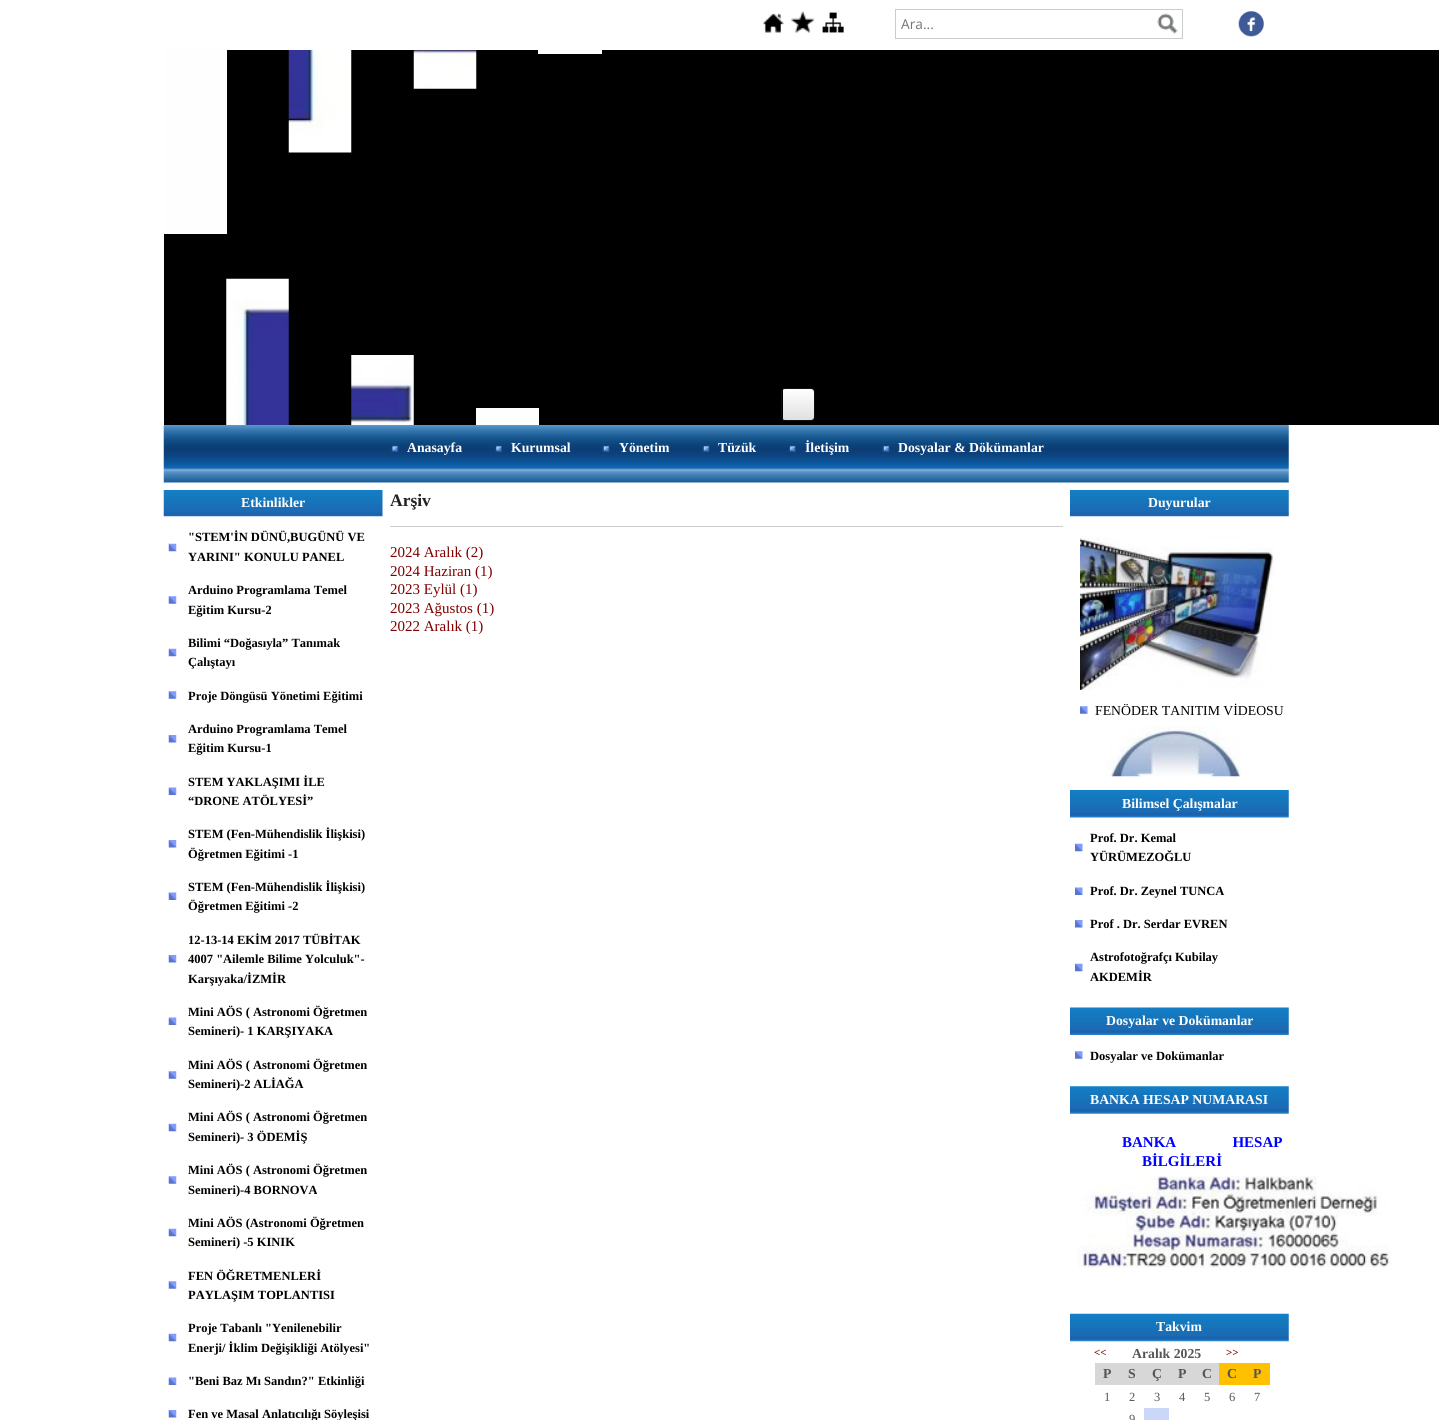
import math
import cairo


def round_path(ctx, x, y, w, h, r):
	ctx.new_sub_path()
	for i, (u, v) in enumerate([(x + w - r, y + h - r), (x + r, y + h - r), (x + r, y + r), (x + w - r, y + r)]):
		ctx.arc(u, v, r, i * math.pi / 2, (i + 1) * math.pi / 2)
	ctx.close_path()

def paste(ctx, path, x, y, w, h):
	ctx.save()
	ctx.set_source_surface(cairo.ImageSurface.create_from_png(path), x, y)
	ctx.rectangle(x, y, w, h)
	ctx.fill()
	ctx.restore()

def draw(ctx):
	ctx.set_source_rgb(1, 1, 1)
	ctx.paint()
	paste(ctx, 'media/1.png', 762, 13, 22, 20)
	paste(ctx, 'media/2.png', 791, 11, 24, 22)
	paste(ctx, 'media/3.png', 822, 12, 22, 21)
	ctx.rectangle(895.5, 9.5, 287, 29)
	ctx.set_source_rgb(0.8, 0.8, 0.8)
	ctx.set_line_width(1)
	ctx.stroke()
	ctx.select_font_face('Open Sans')
	ctx.set_font_size(13.75)
	ctx.set_source_rgb(0.459, 0.459, 0.459)
	ctx.move_to(901, 29)
	ctx.show_text('Ara...')
	paste(ctx, 'media/4.png', 1157, 13, 21, 21)
	paste(ctx, 'media/5.png', 1238, 11, 26, 26)
	ctx.set_source_rgb(0, 0, 0)
	ctx.rectangle(164, 50, 1275, 375)
	ctx.fill()
	ctx.set_source_rgb(0.996, 0.996, 0.996)
	ctx.rectangle(164, 50, 63, 184)
	ctx.fill()
	paste(ctx, 'media/6.png', 288, 50, 64, 103)
	paste(ctx, 'media/7.png', 413, 50, 64, 39)
	ctx.set_source_rgb(1, 1, 1)
	ctx.rectangle(538, 50, 64, 4)
	ctx.fill()
	paste(ctx, 'media/8.png', 226, 278, 63, 147)
	paste(ctx, 'media/9.png', 351, 355, 63, 70)
	ctx.set_source_rgb(0.996, 0.996, 0.996)
	ctx.rectangle(476, 408, 63, 17)
	ctx.fill()
	gradient = cairo.LinearGradient(783, 389, 783, 420)
	gradient.add_color_stop_rgba(0, 1, 1, 1, 1)
	gradient.add_color_stop_rgba(1, 0.878, 0.878, 0.878, 1)
	ctx.set_source(gradient)
	ctx.rectangle(783, 389, 31, 31)
	ctx.fill()
	round_path(ctx, 781.5, 388.5, 33, 32, 3.5)
	ctx.set_source_rgb(0.067, 0.067, 0.067)
	ctx.stroke()
	paste(ctx, 'media/10.png', 163, 425, 1126, 58)
	paste(ctx, 'media/11.png', 391, 445, 8, 8)
	ctx.select_font_face('Liberation Serif', cairo.FONT_SLANT_NORMAL, cairo.FONT_WEIGHT_BOLD)
	ctx.set_source_rgb(1, 1, 1)
	ctx.move_to(407, 452)
	ctx.show_text('Anasayfa')
	paste(ctx, 'media/12.png', 495, 445, 8, 8)
	ctx.move_to(511, 452)
	ctx.show_text('Kurumsal')
	paste(ctx, 'media/13.png', 602, 445, 8, 8)
	ctx.move_to(619, 452)
	ctx.show_text('Yönetim')
	paste(ctx, 'media/13.png', 702, 445, 8, 8)
	ctx.move_to(718, 452)
	ctx.show_text('Tüzük')
	paste(ctx, 'media/14.png', 788, 445, 9, 8)
	ctx.move_to(805, 452)
	ctx.show_text('İletişim')
	paste(ctx, 'media/13.png', 882, 445, 8, 8)
	ctx.move_to(898, 452)
	ctx.show_text('Dosyalar & Dökümanlar')
	paste(ctx, 'media/15.png', 163, 490, 220, 27)
	ctx.move_to(241, 507)
	ctx.show_text('Etkinlikler')
	paste(ctx, 'media/16.png', 168, 543, 9, 9)
	ctx.set_font_size(12.5)
	ctx.set_source_rgb(0, 0, 0)
	ctx.move_to(188, 541)
	ctx.show_text('"STEM\'İN DÜNÜ,BUGÜNÜ VE')
	ctx.move_to(188, 561)
	ctx.show_text('YARINI" KONULU PANEL')
	paste(ctx, 'media/17.png', 168, 596, 9, 8)
	ctx.move_to(188, 594)
	ctx.show_text('Arduino Programlama Temel')
	ctx.move_to(188, 614)
	ctx.show_text('Eğitim Kursu-2')
	paste(ctx, 'media/16.png', 168, 648, 9, 9)
	ctx.move_to(188, 647)
	ctx.show_text('Bilimi “Doğasıyla” Tanımak')
	ctx.move_to(188, 666)
	ctx.show_text('Çalıştayı')
	paste(ctx, 'media/17.png', 168, 691, 9, 8)
	ctx.move_to(188, 700)
	ctx.show_text('Proje Döngüsü Yönetimi Eğitimi')
	paste(ctx, 'media/18.png', 168, 735, 9, 8)
	ctx.move_to(188, 733)
	ctx.show_text('Arduino Programlama Temel')
	ctx.move_to(188, 752)
	ctx.show_text('Eğitim Kursu-1')
	paste(ctx, 'media/19.png', 168, 787, 9, 8)
	ctx.move_to(188, 786)
	ctx.show_text('STEM YAKLAŞIMI İLE')
	ctx.move_to(188, 805)
	ctx.show_text('“DRONE ATÖLYESİ”')
	paste(ctx, 'media/18.png', 168, 840, 9, 8)
	ctx.move_to(188, 838)
	ctx.show_text('STEM (Fen-Mühendislik İlişkisi)')
	ctx.move_to(188, 858)
	ctx.show_text('Öğretmen Eğitimi -1')
	paste(ctx, 'media/19.png', 168, 892, 9, 8)
	ctx.move_to(188, 891)
	ctx.show_text('STEM (Fen-Mühendislik İlişkisi)')
	ctx.move_to(188, 910)
	ctx.show_text('Öğretmen Eğitimi -2')
	paste(ctx, 'media/18.png', 168, 955, 9, 8)
	for x, y, s in [
		(188, 944, '12-13-14 EKİM 2017 TÜBİTAK'),
		(188, 963, '4007 "Ailemle Bilime Yolculuk"-'),
		(188, 983, 'Karşıyaka/İZMİR'),
	]:
		ctx.move_to(x, y)
		ctx.show_text(s)
	paste(ctx, 'media/19.png', 168, 1017, 9, 8)
	ctx.move_to(188, 1016)
	ctx.show_text('Mini AÖS ( Astronomi Öğretmen')
	ctx.move_to(188, 1035)
	ctx.show_text('Semineri)- 1 KARŞIYAKA')
	paste(ctx, 'media/17.png', 168, 1071, 9, 8)
	ctx.move_to(188, 1069)
	ctx.show_text('Mini AÖS ( Astronomi Öğretmen')
	ctx.move_to(188, 1088)
	ctx.show_text('Semineri)-2 ALİAĞA')
	paste(ctx, 'media/16.png', 168, 1123, 9, 9)
	ctx.move_to(188, 1121)
	ctx.show_text('Mini AÖS ( Astronomi Öğretmen')
	ctx.move_to(188, 1141)
	ctx.show_text('Semineri)- 3 ÖDEMİŞ')
	paste(ctx, 'media/17.png', 168, 1176, 9, 8)
	ctx.move_to(188, 1174)
	ctx.show_text('Mini AÖS ( Astronomi Öğretmen')
	ctx.move_to(188, 1194)
	ctx.show_text('Semineri)-4 BORNOVA')
	paste(ctx, 'media/16.png', 168, 1228, 9, 9)
	ctx.move_to(188, 1227)
	ctx.show_text('Mini AÖS (Astronomi Öğretmen')
	ctx.move_to(188, 1246)
	ctx.show_text('Semineri) -5 KINIK')
	paste(ctx, 'media/17.png', 168, 1281, 9, 8)
	ctx.move_to(188, 1280)
	ctx.show_text('FEN ÖĞRETMENLERİ')
	ctx.move_to(188, 1299)
	ctx.show_text('PAYLAŞIM TOPLANTISI')
	paste(ctx, 'media/16.png', 168, 1333, 9, 9)
	ctx.move_to(188, 1332)
	ctx.show_text('Proje Tabanlı "Yenilenebilir')
	ctx.move_to(188, 1352)
	ctx.show_text('Enerji/ İklim Değişikliği Atölyesi"')
	paste(ctx, 'media/19.png', 168, 1377, 9, 8)
	ctx.move_to(188, 1385)
	ctx.show_text('"Beni Baz Mı Sandın?" Etkinliği')
	paste(ctx, 'media/18.png', 168, 1410, 9, 8)
	ctx.move_to(188, 1418)
	ctx.show_text('Fen ve Masal Anlatıcılığı Söyleşisi')
	ctx.set_font_size(17.5)
	ctx.set_source_rgb(0.133, 0.133, 0.133)
	ctx.move_to(390, 506)
	ctx.show_text('Arşiv')
	ctx.set_source_rgb(0.8, 0.8, 0.8)
	ctx.rectangle(390, 526, 673, 1)
	ctx.fill()
	ctx.select_font_face('Liberation Serif')
	ctx.set_font_size(15)
	ctx.set_source_rgb(0.502, 0, 0)
	for x, y, s in [
		(390, 557, '2024 Aralık (2)'),
		(390, 576, '2024 Haziran (1)'),
		(390, 594, '2023 Eylül (1)'),
		(390, 613, '2023 Ağustos (1)'),
		(390, 631, '2022 Aralık (1)'),
	]:
		ctx.move_to(x, y)
		ctx.show_text(s)
	paste(ctx, 'media/20.png', 1070, 490, 219, 27)
	ctx.select_font_face('Liberation Serif', cairo.FONT_SLANT_NORMAL, cairo.FONT_WEIGHT_BOLD)
	ctx.set_font_size(13.75)
	ctx.set_source_rgb(1, 1, 1)
	ctx.move_to(1148, 507)
	ctx.show_text('Duyurular')
	paste(ctx, 'media/21.png', 1080, 536, 194, 154)
	paste(ctx, 'media/22.png', 1080, 706, 8, 8)
	ctx.select_font_face('Liberation Serif')
	ctx.set_source_rgb(0, 0, 0)
	ctx.move_to(1095, 715)
	ctx.show_text('FENÖDER TANITIM VİDEOSU')
	paste(ctx, 'media/23.png', 1105, 726, 136, 51)
	paste(ctx, 'media/24.png', 1070, 790, 219, 28)
	ctx.select_font_face('Liberation Serif', cairo.FONT_SLANT_NORMAL, cairo.FONT_WEIGHT_BOLD)
	ctx.set_source_rgb(1, 1, 1)
	ctx.move_to(1122, 808)
	ctx.show_text('Bilimsel Çalışmalar')
	paste(ctx, 'media/25.png', 1075, 843, 8, 9)
	ctx.set_font_size(12.5)
	ctx.set_source_rgb(0, 0, 0)
	ctx.move_to(1090, 842)
	ctx.show_text('Prof. Dr. Kemal')
	ctx.move_to(1090, 861)
	ctx.show_text('YÜRÜMEZOĞLU')
	paste(ctx, 'media/26.png', 1075, 887, 8, 8)
	ctx.move_to(1090, 895)
	ctx.show_text('Prof. Dr. Zeynel TUNCA')
	paste(ctx, 'media/27.png', 1075, 920, 8, 8)
	ctx.move_to(1090, 928)
	ctx.show_text('Prof . Dr. Serdar EVREN')
	paste(ctx, 'media/25.png', 1075, 963, 8, 9)
	ctx.move_to(1090, 961)
	ctx.show_text('Astrofotoğrafçı Kubilay')
	ctx.move_to(1090, 981)
	ctx.show_text('AKDEMİR')
	paste(ctx, 'media/28.png', 1070, 1007, 219, 28)
	ctx.set_font_size(13.75)
	ctx.set_source_rgb(1, 1, 1)
	ctx.move_to(1106, 1025)
	ctx.show_text('Dosyalar ve Dokümanlar')
	paste(ctx, 'media/22.png', 1075, 1051, 8, 8)
	ctx.set_font_size(12.5)
	ctx.set_source_rgb(0, 0, 0)
	ctx.move_to(1090, 1060)
	ctx.show_text('Dosyalar ve Dokümanlar')
	paste(ctx, 'media/29.png', 1070, 1086, 219, 28)
	ctx.set_font_size(13.75)
	ctx.set_source_rgb(1, 1, 1)
	ctx.move_to(1090, 1104)
	ctx.show_text('BANKA HESAP NUMARASI')
	ctx.set_font_size(15)
	ctx.set_source_rgb(0, 0, 1)
	ctx.move_to(1122, 1147)
	ctx.show_text('BANKA               HESAP')
	ctx.move_to(1142, 1166)
	ctx.show_text('BİLGİLERİ')
	paste(ctx, 'media/30.png', 1077, 1175, 314, 94)
	paste(ctx, 'media/31.png', 1070, 1313, 219, 29)
	ctx.set_font_size(13.75)
	ctx.set_source_rgb(1, 1, 1)
	ctx.move_to(1156, 1331)
	ctx.show_text('Takvim')
	ctx.set_font_size(11)
	ctx.set_source_rgb(0.502, 0, 0)
	ctx.move_to(1094, 1356)
	ctx.show_text('<<')
	ctx.set_font_size(13.75)
	ctx.set_source_rgb(0.333, 0.333, 0.333)
	ctx.move_to(1132, 1358)
	ctx.show_text('Aralık 2025')
	ctx.set_font_size(11)
	ctx.set_source_rgb(0.502, 0, 0)
	ctx.move_to(1226, 1356)
	ctx.show_text('>>')
	ctx.set_source_rgb(0.843, 0.843, 0.843)
	ctx.rectangle(1095, 1363, 124, 22)
	ctx.fill()
	ctx.set_font_size(13.75)
	ctx.set_source_rgb(0.333, 0.333, 0.333)
	for x, y, s in [
		(1103, 1378, 'P'),
		(1128, 1378, 'S'),
		(1152, 1378, 'Ç'),
		(1178, 1378, 'P'),
		(1202, 1378, 'C'),
	]:
		ctx.move_to(x, y)
		ctx.show_text(s)
	ctx.set_source_rgb(1, 0.753, 0)
	ctx.rectangle(1219, 1363, 51, 22)
	ctx.fill()
	ctx.set_source_rgb(0.333, 0.333, 0.333)
	ctx.move_to(1227, 1378)
	ctx.show_text('C')
	ctx.move_to(1253, 1378)
	ctx.show_text('P')
	ctx.select_font_face('Liberation Serif')
	ctx.set_font_size(12.5)
	for x, y, s in [
		(1104, 1401, '1'),
		(1129, 1401, '2'),
		(1154, 1401, '3'),
		(1179, 1401, '4'),
		(1204, 1401, '5'),
		(1229, 1401, '6'),
		(1254, 1401, '7'),
		(1129, 1423, '9'),
	]:
		ctx.move_to(x, y)
		ctx.show_text(s)
	ctx.set_source_rgb(0.792, 0.843, 0.976)
	ctx.rectangle(1144, 1408, 25, 12)
	ctx.fill()


surface = cairo.ImageSurface(cairo.FORMAT_RGB24, 1452, 1420)
ctx = cairo.Context(surface)
options = cairo.FontOptions()
options.set_hint_metrics(cairo.HINT_METRICS_OFF)
options.set_hint_style(cairo.HINT_STYLE_NONE)
ctx.set_font_options(options)
ctx.set_miter_limit(4)
draw(ctx)
surface.write_to_png('image.png')
